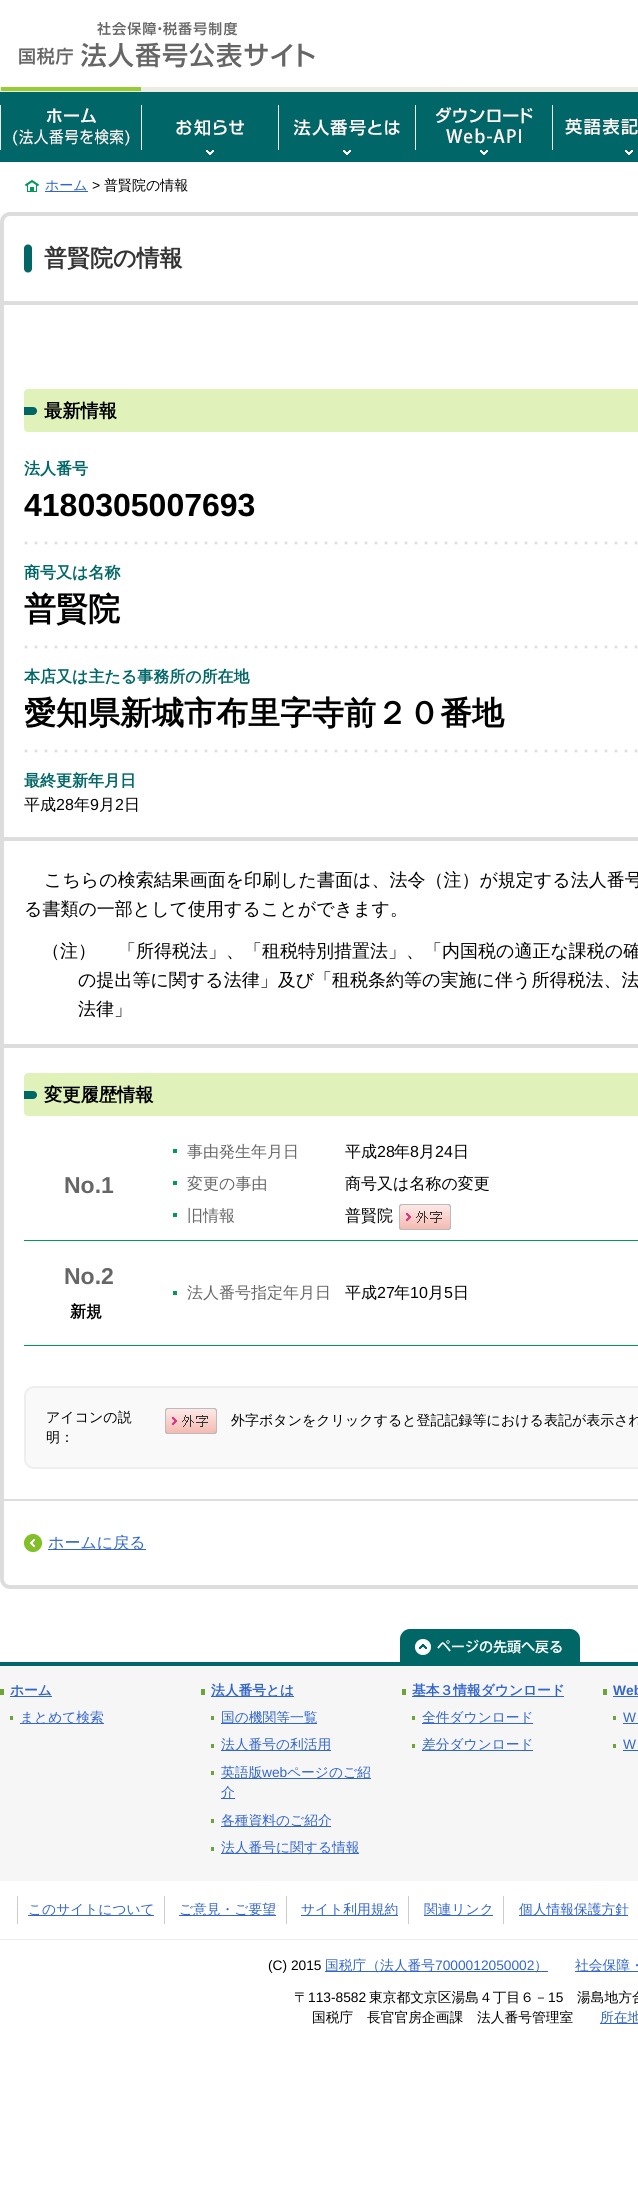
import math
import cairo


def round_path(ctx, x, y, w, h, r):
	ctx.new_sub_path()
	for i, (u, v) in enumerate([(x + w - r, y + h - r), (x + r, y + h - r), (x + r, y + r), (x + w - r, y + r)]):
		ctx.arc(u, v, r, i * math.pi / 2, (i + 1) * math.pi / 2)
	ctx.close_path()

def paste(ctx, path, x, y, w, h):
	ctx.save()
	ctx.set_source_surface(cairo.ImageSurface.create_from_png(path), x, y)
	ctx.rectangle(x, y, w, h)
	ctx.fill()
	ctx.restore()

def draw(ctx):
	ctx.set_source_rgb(1, 1, 1)
	ctx.paint()
	paste(ctx, 'media/1.png', 19, 22, 296, 46)
	ctx.set_source_rgb(0, 0.4, 0.404)
	ctx.rectangle(0, 92, 638, 70)
	ctx.fill()
	ctx.set_source_rgb(0.922, 0.922, 0.89)
	ctx.rectangle(0, 87, 638, 5)
	ctx.fill()
	ctx.set_source_rgb(0.922, 0.922, 0.894)
	ctx.rectangle(0, 105, 1, 45)
	ctx.fill()
	ctx.set_source_rgb(0.6, 0.8, 0.2)
	ctx.rectangle(1, 87, 140, 4)
	ctx.fill()
	paste(ctx, 'media/2.png', 13, 108, 117, 38)
	ctx.set_source_rgb(0.922, 0.922, 0.894)
	ctx.rectangle(141, 105, 1, 45)
	ctx.fill()
	paste(ctx, 'media/3.png', 176, 119, 68, 36)
	ctx.rectangle(278, 105, 1, 45)
	ctx.fill()
	paste(ctx, 'media/4.png', 294, 119, 106, 36)
	ctx.rectangle(415, 105, 1, 45)
	ctx.fill()
	paste(ctx, 'media/5.png', 435, 107, 98, 48)
	ctx.rectangle(552, 105, 1, 45)
	ctx.fill()
	paste(ctx, 'media/6.png', 565, 118, 73, 37)
	paste(ctx, 'media/7.png', 25, 180, 14, 12)
	ctx.set_source_rgb(0.2, 0.4, 0.8)
	ctx.rectangle(45, 191, 43, 1)
	ctx.fill()
	ctx.select_font_face('WenQuanYi Zen Hei Medium')
	ctx.set_font_size(14)
	ctx.move_to(45, 190)
	ctx.show_text('ホーム')
	ctx.select_font_face('Liberation Sans')
	ctx.set_source_rgb(0, 0, 0)
	ctx.move_to(92, 190)
	ctx.show_text('>')
	ctx.select_font_face('WenQuanYi Zen Hei Medium')
	ctx.move_to(104, 190)
	ctx.show_text('普賢院の情報')
	round_path(ctx, 2, 214, 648, 1373, 8)
	ctx.set_source_rgb(0.867, 0.867, 0.867)
	ctx.set_line_width(4)
	ctx.stroke()
	paste(ctx, 'media/8.png', 24, 244, 8, 29)
	ctx.rectangle(4, 301, 634, 4)
	ctx.fill()
	ctx.select_font_face('WenQuanYi Zen Hei', cairo.FONT_SLANT_NORMAL, cairo.FONT_WEIGHT_BOLD)
	ctx.set_font_size(23)
	ctx.set_source_rgb(0.2, 0.2, 0.2)
	ctx.move_to(44, 266)
	ctx.show_text('普賢院の情報')
	ctx.set_source_rgb(0.867, 0.867, 0.867)
	ctx.rectangle(4, 837, 634, 4)
	ctx.fill()
	ctx.set_source_rgb(0.878, 0.949, 0.729)
	round_path(ctx, 24, 389, 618, 43, 4)
	ctx.fill()
	paste(ctx, 'media/9.png', 24, 407, 13, 8)
	ctx.set_font_size(18.25)
	ctx.set_source_rgb(0, 0, 0)
	ctx.move_to(44, 417)
	ctx.show_text('最新情報')
	ctx.set_font_size(16)
	ctx.set_source_rgb(0, 0.4, 0.404)
	ctx.move_to(24, 474)
	ctx.show_text('法人番号')
	paste(ctx, 'media/10.png', 24, 541, 614, 4)
	ctx.select_font_face('Liberation Sans', cairo.FONT_SLANT_NORMAL, cairo.FONT_WEIGHT_BOLD)
	ctx.set_font_size(32)
	ctx.set_source_rgb(0, 0, 0)
	ctx.move_to(24, 516)
	ctx.show_text('4180305007693')
	ctx.select_font_face('WenQuanYi Zen Hei', cairo.FONT_SLANT_NORMAL, cairo.FONT_WEIGHT_BOLD)
	ctx.set_font_size(16)
	ctx.set_source_rgb(0, 0.4, 0.404)
	ctx.move_to(24, 578)
	ctx.show_text('商号又は名称')
	paste(ctx, 'media/10.png', 24, 645, 614, 4)
	ctx.set_font_size(32)
	ctx.set_source_rgb(0, 0, 0)
	ctx.move_to(24, 620)
	ctx.show_text('普賢院')
	ctx.set_font_size(16)
	ctx.set_source_rgb(0, 0.4, 0.404)
	ctx.move_to(24, 682)
	ctx.show_text('本店又は主たる事務所の所在地')
	paste(ctx, 'media/10.png', 24, 749, 614, 4)
	ctx.set_font_size(32)
	ctx.set_source_rgb(0, 0, 0)
	ctx.move_to(24, 724)
	ctx.show_text('愛知県新城市布里字寺前２０番地')
	ctx.set_font_size(16)
	ctx.set_source_rgb(0, 0.4, 0.404)
	ctx.move_to(24, 786)
	ctx.show_text('最終更新年月日')
	ctx.select_font_face('WenQuanYi Zen Hei Medium')
	ctx.set_source_rgb(0, 0, 0)
	ctx.move_to(24, 810)
	ctx.show_text('平成')
	ctx.select_font_face('Liberation Sans')
	ctx.move_to(56, 810)
	ctx.show_text('28')
	ctx.select_font_face('WenQuanYi Zen Hei Medium')
	ctx.move_to(74, 810)
	ctx.show_text('年')
	ctx.select_font_face('Liberation Sans')
	ctx.move_to(90, 810)
	ctx.show_text('9')
	ctx.select_font_face('WenQuanYi Zen Hei Medium')
	ctx.move_to(99, 810)
	ctx.show_text('月')
	ctx.select_font_face('Liberation Sans')
	ctx.move_to(115, 810)
	ctx.show_text('2')
	ctx.select_font_face('WenQuanYi Zen Hei Medium')
	ctx.move_to(124, 810)
	ctx.show_text('日')
	ctx.set_source_rgb(0.867, 0.867, 0.867)
	ctx.rectangle(4, 1044, 634, 4)
	ctx.fill()
	ctx.set_font_size(18)
	ctx.set_source_rgb(0, 0, 0)
	for x, y, s in [
		(44, 886, 'こちらの検索結果画面を印刷した書面は、法令（注）が規定する法人番号'),
		(24, 915, 'る書類の一部として使用することができます。'),
		(42, 957, '（注）'),
		(118, 957, '「所得税法」、「租税特別措置法」、「内国税の適正な課税の確'),
		(78, 986, 'の提出等に関する法律」及び「租税条約等の実施に伴う所得税法、法'),
		(78, 1015, '法律」'),
	]:
		ctx.move_to(x, y)
		ctx.show_text(s)
	ctx.set_source_rgb(0.878, 0.949, 0.729)
	round_path(ctx, 24, 1073, 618, 43, 4)
	ctx.fill()
	paste(ctx, 'media/9.png', 24, 1091, 13, 8)
	ctx.select_font_face('WenQuanYi Zen Hei', cairo.FONT_SLANT_NORMAL, cairo.FONT_WEIGHT_BOLD)
	ctx.set_font_size(18.25)
	ctx.set_source_rgb(0, 0, 0)
	ctx.move_to(44, 1101)
	ctx.show_text('変更履歴情報')
	ctx.set_source_rgb(0, 0.612, 0.333)
	ctx.rectangle(24, 1240, 614, 1)
	ctx.fill()
	ctx.select_font_face('Liberation Sans', cairo.FONT_SLANT_NORMAL, cairo.FONT_WEIGHT_BOLD)
	ctx.set_font_size(23)
	ctx.set_source_rgb(0.4, 0.4, 0.4)
	ctx.move_to(64, 1193)
	ctx.show_text('No.1')
	ctx.set_source_rgb(0, 0.612, 0.333)
	ctx.rectangle(173, 1149, 4, 4)
	ctx.fill()
	ctx.select_font_face('WenQuanYi Zen Hei Medium')
	ctx.set_font_size(16)
	ctx.set_source_rgb(0.4, 0.4, 0.4)
	ctx.move_to(187, 1157)
	ctx.show_text('事由発生年月日')
	ctx.set_source_rgb(0, 0, 0)
	ctx.move_to(345, 1157)
	ctx.show_text('平成')
	ctx.select_font_face('Liberation Sans')
	ctx.move_to(377, 1157)
	ctx.show_text('28')
	ctx.select_font_face('WenQuanYi Zen Hei Medium')
	ctx.move_to(394, 1157)
	ctx.show_text('年')
	ctx.select_font_face('Liberation Sans')
	ctx.move_to(410, 1157)
	ctx.show_text('8')
	ctx.select_font_face('WenQuanYi Zen Hei Medium')
	ctx.move_to(419, 1157)
	ctx.show_text('月')
	ctx.select_font_face('Liberation Sans')
	ctx.move_to(435, 1157)
	ctx.show_text('24')
	ctx.select_font_face('WenQuanYi Zen Hei Medium')
	ctx.move_to(453, 1157)
	ctx.show_text('日')
	ctx.set_source_rgb(0, 0.612, 0.333)
	ctx.rectangle(173, 1181, 4, 4)
	ctx.fill()
	ctx.set_source_rgb(0.4, 0.4, 0.4)
	ctx.move_to(187, 1189)
	ctx.show_text('変更の事由')
	ctx.set_source_rgb(0, 0, 0)
	ctx.move_to(345, 1189)
	ctx.show_text('商号又は名称の変更')
	ctx.set_source_rgb(0, 0.612, 0.333)
	ctx.rectangle(173, 1213, 4, 4)
	ctx.fill()
	ctx.set_source_rgb(0.4, 0.4, 0.4)
	ctx.move_to(187, 1221)
	ctx.show_text('旧情報')
	ctx.set_source_rgb(0, 0, 0)
	ctx.move_to(345, 1221)
	ctx.show_text('普賢院')
	paste(ctx, 'media/11.png', 399, 1204, 52, 26)
	ctx.set_source_rgb(0, 0.612, 0.333)
	ctx.rectangle(24, 1345, 614, 1)
	ctx.fill()
	ctx.select_font_face('Liberation Sans', cairo.FONT_SLANT_NORMAL, cairo.FONT_WEIGHT_BOLD)
	ctx.set_font_size(23)
	ctx.set_source_rgb(0.4, 0.4, 0.4)
	ctx.move_to(64, 1284)
	ctx.show_text('No.2')
	ctx.select_font_face('WenQuanYi Zen Hei', cairo.FONT_SLANT_NORMAL, cairo.FONT_WEIGHT_BOLD)
	ctx.set_font_size(16)
	ctx.set_source_rgb(0, 0, 0)
	ctx.move_to(70, 1317)
	ctx.show_text('新規')
	ctx.set_source_rgb(0, 0.612, 0.333)
	ctx.rectangle(173, 1291, 4, 4)
	ctx.fill()
	ctx.select_font_face('WenQuanYi Zen Hei Medium')
	ctx.set_source_rgb(0.4, 0.4, 0.4)
	ctx.move_to(187, 1298)
	ctx.show_text('法人番号指定年月日')
	ctx.set_source_rgb(0, 0, 0)
	ctx.move_to(345, 1298)
	ctx.show_text('平成')
	ctx.select_font_face('Liberation Sans')
	ctx.move_to(377, 1298)
	ctx.show_text('27')
	ctx.select_font_face('WenQuanYi Zen Hei Medium')
	ctx.move_to(394, 1298)
	ctx.show_text('年')
	ctx.select_font_face('Liberation Sans')
	ctx.move_to(410, 1298)
	ctx.show_text('10')
	ctx.select_font_face('WenQuanYi Zen Hei Medium')
	ctx.move_to(428, 1298)
	ctx.show_text('月')
	ctx.select_font_face('Liberation Sans')
	ctx.move_to(444, 1298)
	ctx.show_text('5')
	ctx.select_font_face('WenQuanYi Zen Hei Medium')
	ctx.move_to(453, 1298)
	ctx.show_text('日')
	ctx.set_source_rgb(0.973, 0.973, 0.973)
	round_path(ctx, 25, 1387, 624, 81, 9)
	ctx.fill_preserve()
	ctx.set_source_rgb(0.933, 0.933, 0.933)
	ctx.set_line_width(2)
	ctx.stroke()
	ctx.set_font_size(14)
	ctx.set_source_rgb(0, 0, 0)
	ctx.move_to(46, 1422)
	ctx.show_text('アイコンの説')
	ctx.move_to(46, 1442)
	ctx.show_text('明：')
	paste(ctx, 'media/12.png', 165, 1408, 52, 26)
	ctx.move_to(231, 1425)
	ctx.show_text('外字ボタンをクリックすると登記記録等における表記が表示され')
	ctx.set_source_rgb(0.867, 0.867, 0.867)
	ctx.rectangle(4, 1499, 634, 2)
	ctx.fill()
	paste(ctx, 'media/13.png', 24, 1534, 18, 18)
	ctx.set_source_rgb(0.2, 0.4, 0.8)
	ctx.rectangle(48, 1549, 98, 1)
	ctx.fill()
	ctx.set_font_size(16)
	ctx.move_to(48, 1548)
	ctx.show_text('ホームに戻る')
	paste(ctx, 'media/14.png', 400, 1629, 180, 33)
	ctx.set_source_rgb(0, 0.4, 0.4)
	ctx.rectangle(0, 1662, 638, 4)
	ctx.fill()
	ctx.set_source_rgb(0.961, 0.961, 0.961)
	ctx.rectangle(0, 1666, 638, 215)
	ctx.fill()
	ctx.set_source_rgb(0.42, 0.643, 0.224)
	ctx.rectangle(0, 1689, 4, 6)
	ctx.fill()
	ctx.set_source_rgb(0.2, 0.4, 0.8)
	ctx.rectangle(10, 1696, 42, 1)
	ctx.fill()
	ctx.select_font_face('WenQuanYi Zen Hei', cairo.FONT_SLANT_NORMAL, cairo.FONT_WEIGHT_BOLD)
	ctx.set_font_size(13.75)
	ctx.move_to(10, 1695)
	ctx.show_text('ホーム')
	ctx.set_source_rgb(0.42, 0.643, 0.224)
	ctx.rectangle(10, 1716, 3, 4)
	ctx.fill()
	ctx.set_source_rgb(0.2, 0.4, 0.8)
	ctx.rectangle(20, 1723, 84, 1)
	ctx.fill()
	ctx.select_font_face('WenQuanYi Zen Hei Medium')
	ctx.move_to(20, 1722)
	ctx.show_text('まとめて検索')
	ctx.set_source_rgb(0.42, 0.643, 0.224)
	ctx.rectangle(201, 1689, 4, 6)
	ctx.fill()
	ctx.set_source_rgb(0.2, 0.4, 0.8)
	ctx.rectangle(211, 1696, 83, 1)
	ctx.fill()
	ctx.select_font_face('WenQuanYi Zen Hei', cairo.FONT_SLANT_NORMAL, cairo.FONT_WEIGHT_BOLD)
	ctx.move_to(211, 1695)
	ctx.show_text('法人番号とは')
	ctx.set_source_rgb(0.42, 0.643, 0.224)
	ctx.rectangle(211, 1716, 3, 4)
	ctx.fill()
	ctx.set_source_rgb(0.2, 0.4, 0.8)
	ctx.rectangle(221, 1723, 96, 1)
	ctx.fill()
	ctx.select_font_face('WenQuanYi Zen Hei Medium')
	ctx.move_to(221, 1722)
	ctx.show_text('国の機関等一覧')
	ctx.set_source_rgb(0.42, 0.643, 0.224)
	ctx.rectangle(211, 1744, 3, 4)
	ctx.fill()
	ctx.set_source_rgb(0.2, 0.4, 0.8)
	ctx.rectangle(221, 1750, 110, 1)
	ctx.fill()
	ctx.move_to(221, 1749)
	ctx.show_text('法人番号の利活用')
	ctx.set_source_rgb(0.42, 0.643, 0.224)
	ctx.rectangle(211, 1771, 3, 4)
	ctx.fill()
	ctx.set_source_rgb(0.2, 0.4, 0.8)
	ctx.rectangle(221, 1778, 150, 1)
	ctx.fill()
	ctx.move_to(221, 1777)
	ctx.show_text('英語版')
	ctx.select_font_face('Liberation Sans')
	ctx.move_to(262, 1777)
	ctx.show_text('web')
	ctx.select_font_face('WenQuanYi Zen Hei Medium')
	ctx.move_to(287, 1777)
	ctx.show_text('ページのご紹')
	ctx.rectangle(221, 1798, 14, 1)
	ctx.fill()
	ctx.move_to(221, 1797)
	ctx.show_text('介')
	ctx.set_source_rgb(0.42, 0.643, 0.224)
	ctx.rectangle(211, 1819, 3, 4)
	ctx.fill()
	ctx.set_source_rgb(0.2, 0.4, 0.8)
	ctx.rectangle(221, 1826, 110, 1)
	ctx.fill()
	ctx.move_to(221, 1825)
	ctx.show_text('各種資料のご紹介')
	ctx.set_source_rgb(0.42, 0.643, 0.224)
	ctx.rectangle(211, 1847, 3, 4)
	ctx.fill()
	ctx.set_source_rgb(0.2, 0.4, 0.8)
	ctx.rectangle(221, 1853, 138, 1)
	ctx.fill()
	ctx.move_to(221, 1852)
	ctx.show_text('法人番号に関する情報')
	ctx.set_source_rgb(0.42, 0.643, 0.224)
	ctx.rectangle(402, 1689, 4, 6)
	ctx.fill()
	ctx.set_source_rgb(0.2, 0.4, 0.8)
	ctx.rectangle(412, 1696, 152, 1)
	ctx.fill()
	ctx.select_font_face('WenQuanYi Zen Hei', cairo.FONT_SLANT_NORMAL, cairo.FONT_WEIGHT_BOLD)
	ctx.move_to(412, 1695)
	ctx.show_text('基本３情報ダウンロード')
	ctx.set_source_rgb(0.42, 0.643, 0.224)
	ctx.rectangle(412, 1716, 3, 4)
	ctx.fill()
	ctx.set_source_rgb(0.2, 0.4, 0.8)
	ctx.rectangle(422, 1723, 111, 1)
	ctx.fill()
	ctx.select_font_face('WenQuanYi Zen Hei Medium')
	ctx.move_to(422, 1722)
	ctx.show_text('全件ダウンロード')
	ctx.set_source_rgb(0.42, 0.643, 0.224)
	ctx.rectangle(412, 1744, 3, 4)
	ctx.fill()
	ctx.set_source_rgb(0.2, 0.4, 0.8)
	ctx.rectangle(422, 1750, 111, 1)
	ctx.fill()
	ctx.move_to(422, 1749)
	ctx.show_text('差分ダウンロード')
	ctx.set_source_rgb(0.42, 0.643, 0.224)
	ctx.rectangle(603, 1689, 4, 6)
	ctx.fill()
	ctx.select_font_face('Liberation Sans', cairo.FONT_SLANT_NORMAL, cairo.FONT_WEIGHT_BOLD)
	ctx.set_source_rgb(0.2, 0.4, 0.8)
	ctx.move_to(613, 1695)
	ctx.show_text('Web')
	ctx.rectangle(613, 1696, 25, 1)
	ctx.fill()
	ctx.set_source_rgb(0.42, 0.643, 0.224)
	ctx.rectangle(613, 1716, 3, 4)
	ctx.fill()
	ctx.select_font_face('Liberation Sans')
	ctx.set_source_rgb(0.2, 0.4, 0.8)
	ctx.move_to(623, 1722)
	ctx.show_text('W')
	ctx.rectangle(623, 1723, 15, 1)
	ctx.fill()
	ctx.set_source_rgb(0.42, 0.643, 0.224)
	ctx.rectangle(613, 1744, 3, 4)
	ctx.fill()
	ctx.set_source_rgb(0.2, 0.4, 0.8)
	ctx.move_to(623, 1749)
	ctx.show_text('W')
	ctx.rectangle(623, 1750, 15, 1)
	ctx.fill()
	ctx.set_source_rgb(0.8, 0.8, 0.8)
	ctx.rectangle(164, 1896, 1, 28)
	ctx.rectangle(17, 1896, 1, 28)
	ctx.fill()
	ctx.set_source_rgb(0.2, 0.4, 0.8)
	ctx.rectangle(28, 1915, 126, 1)
	ctx.fill()
	ctx.select_font_face('WenQuanYi Zen Hei Medium')
	ctx.move_to(28, 1914)
	ctx.show_text('このサイトについて')
	ctx.set_source_rgb(0.8, 0.8, 0.8)
	ctx.rectangle(286, 1896, 1, 28)
	ctx.fill()
	ctx.set_source_rgb(0.2, 0.4, 0.8)
	ctx.rectangle(179, 1915, 97, 1)
	ctx.fill()
	ctx.move_to(179, 1914)
	ctx.show_text('ご意見・ご要望')
	ctx.set_source_rgb(0.8, 0.8, 0.8)
	ctx.rectangle(408, 1896, 1, 28)
	ctx.fill()
	ctx.set_source_rgb(0.2, 0.4, 0.8)
	ctx.rectangle(301, 1915, 97, 1)
	ctx.fill()
	ctx.move_to(301, 1914)
	ctx.show_text('サイト利用規約')
	ctx.set_source_rgb(0.8, 0.8, 0.8)
	ctx.rectangle(503, 1896, 1, 28)
	ctx.fill()
	ctx.set_source_rgb(0.2, 0.4, 0.8)
	ctx.rectangle(424, 1915, 69, 1)
	ctx.fill()
	ctx.move_to(424, 1914)
	ctx.show_text('関連リンク')
	ctx.rectangle(519, 1915, 109, 1)
	ctx.fill()
	ctx.move_to(519, 1914)
	ctx.show_text('個人情報保護方針')
	ctx.set_source_rgb(0.929, 0.929, 0.929)
	ctx.rectangle(0, 1939, 638, 1)
	ctx.fill()
	ctx.select_font_face('Liberation Sans')
	ctx.set_source_rgb(0, 0, 0)
	ctx.move_to(268, 1970)
	ctx.show_text('(C) 2015')
	ctx.set_source_rgb(0.2, 0.4, 0.8)
	ctx.rectangle(325, 1971, 223, 1)
	ctx.fill()
	ctx.select_font_face('WenQuanYi Zen Hei Medium')
	ctx.move_to(325, 1970)
	ctx.show_text('国税庁（法人番号')
	ctx.select_font_face('Liberation Sans')
	ctx.move_to(435, 1970)
	ctx.show_text('7000012050002')
	ctx.select_font_face('WenQuanYi Zen Hei Medium')
	ctx.move_to(534, 1970)
	ctx.show_text('）')
	ctx.rectangle(575, 1971, 63, 1)
	ctx.fill()
	ctx.move_to(575, 1970)
	ctx.show_text('社会保障・')
	ctx.set_source_rgb(0, 0, 0)
	ctx.move_to(294, 2002)
	ctx.show_text('〒')
	ctx.select_font_face('Liberation Sans')
	ctx.move_to(308, 2002)
	ctx.show_text('113-8582')
	ctx.select_font_face('WenQuanYi Zen Hei Medium')
	ctx.move_to(369, 2002)
	ctx.show_text('東京都文京区湯島４丁目６－')
	ctx.select_font_face('Liberation Sans')
	ctx.move_to(548, 2002)
	ctx.show_text('15')
	ctx.select_font_face('WenQuanYi Zen Hei Medium')
	ctx.move_to(577, 2002)
	ctx.show_text('湯島地方合')
	ctx.move_to(312, 2022)
	ctx.show_text('国税庁　長官官房企画課　法人番号管理室')
	ctx.set_source_rgb(0.2, 0.4, 0.8)
	ctx.rectangle(600, 2023, 38, 1)
	ctx.fill()
	ctx.move_to(600, 2022)
	ctx.show_text('所在地')


surface = cairo.ImageSurface(cairo.FORMAT_RGB24, 638, 2211)
ctx = cairo.Context(surface)
options = cairo.FontOptions()
options.set_hint_metrics(cairo.HINT_METRICS_OFF)
options.set_hint_style(cairo.HINT_STYLE_NONE)
ctx.set_font_options(options)
ctx.set_miter_limit(4)
draw(ctx)
surface.write_to_png('image.png')
